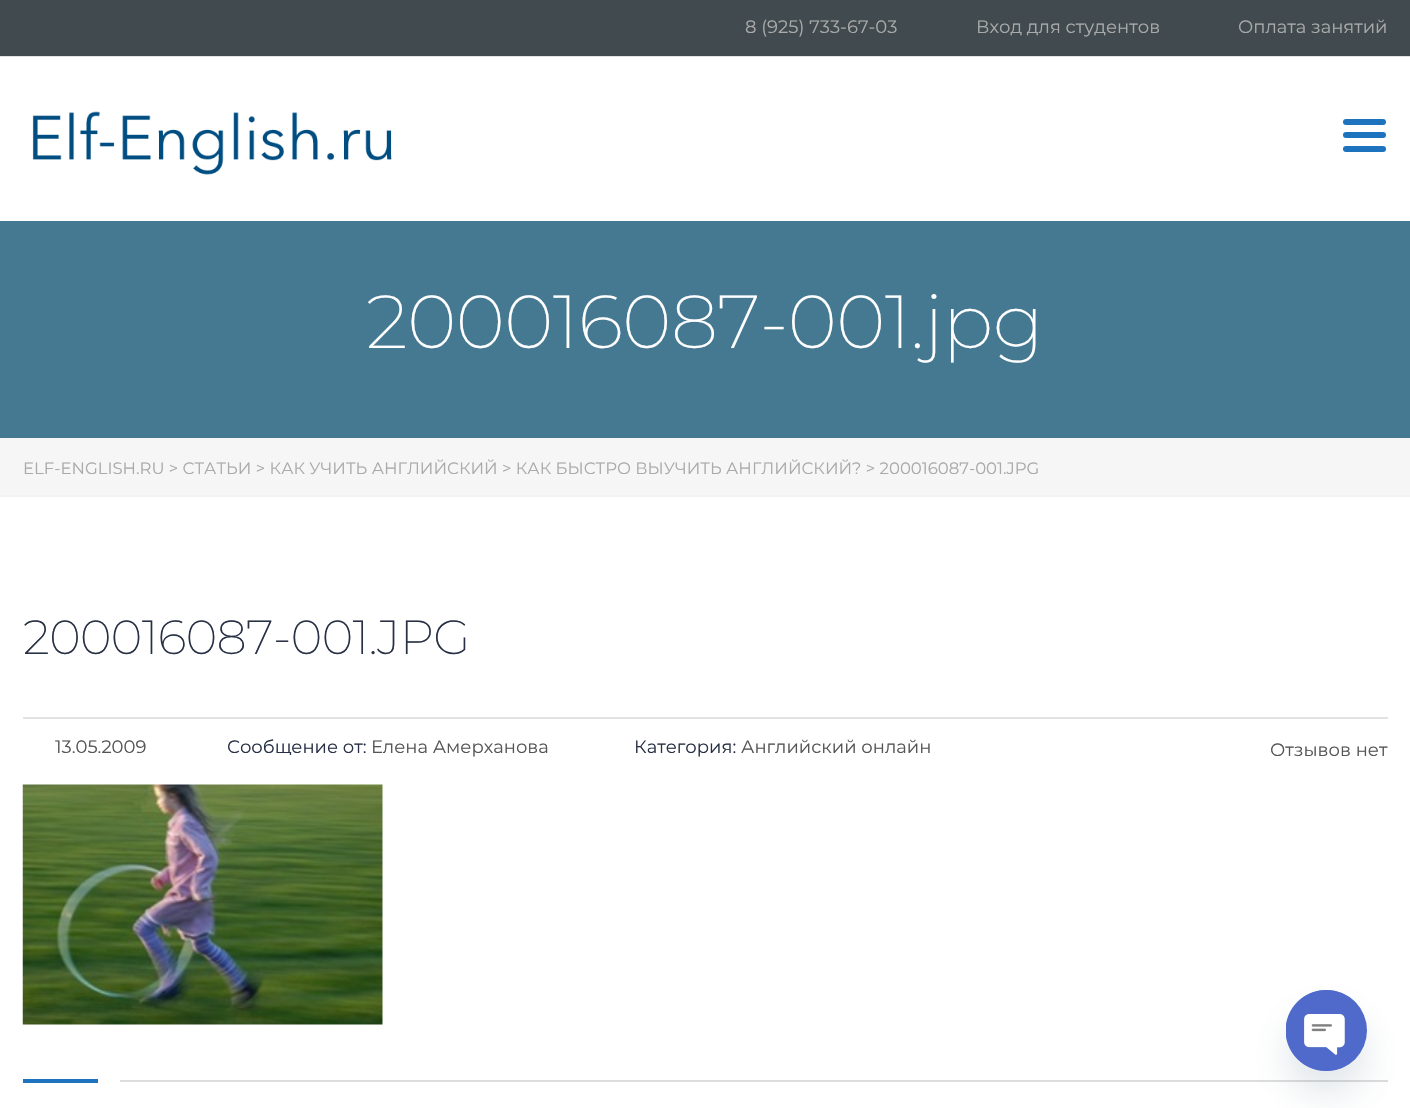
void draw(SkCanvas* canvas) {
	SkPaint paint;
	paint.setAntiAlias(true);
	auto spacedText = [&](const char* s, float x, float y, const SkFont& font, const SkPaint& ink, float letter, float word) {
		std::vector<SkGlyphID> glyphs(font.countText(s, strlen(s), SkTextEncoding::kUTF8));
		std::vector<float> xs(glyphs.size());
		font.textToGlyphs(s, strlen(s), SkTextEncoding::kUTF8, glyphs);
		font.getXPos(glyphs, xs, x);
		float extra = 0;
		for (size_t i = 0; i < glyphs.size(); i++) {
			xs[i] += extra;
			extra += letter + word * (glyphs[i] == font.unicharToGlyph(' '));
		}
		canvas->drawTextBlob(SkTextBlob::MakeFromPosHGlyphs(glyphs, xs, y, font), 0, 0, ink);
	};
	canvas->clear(0xffffffff);
	paint.setColor(0xff414b4f);
	canvas->drawRect(SkRect::MakeXYWH(0, 0, 1410, 56), paint);
	paint.setColor(0xffe2e2e2);
	canvas->drawRect(SkRect::MakeXYWH(0, 56, 1410, 1), paint);
	SkFont f1(fontMgr->matchFamilyStyle("Montserrat", SkFontStyle::Normal()), 18);
	f1.setSubpixel(true);
	paint.setColor(0xffaaaaaa);
	canvas->drawString("8 (925) 733-67-03", 745, 33, f1, paint);
	canvas->drawString("Вход для студентов", 976, 33, f1, paint);
	canvas->drawString("Оплата занятий", 1238, 33, f1, paint);
	canvas->drawImageRect(SkImages::DeferredFromEncodedData(SkData::MakeFromFileName("img1.png")), SkRect::MakeXYWH(32, 111, 360, 64), SkSamplingOptions());
	paint.setColor(0xff1e73be);
	canvas->drawRoundRect(SkRect::MakeXYWH(1343, 119, 43, 6), 3, 3, paint);
	canvas->drawRoundRect(SkRect::MakeXYWH(1343, 132, 43, 6), 3, 3, paint);
	canvas->drawRoundRect(SkRect::MakeXYWH(1343, 146, 43, 6), 3, 3, paint);
	paint.setColor(0xff457992);
	canvas->drawRect(SkRect::MakeXYWH(0, 221, 1410, 217), paint);
	SkFont f2(fontMgr->matchFamilyStyle("Montserrat", SkFontStyle(200, SkFontStyle::kNormal_Width, SkFontStyle::kUpright_Slant)), 75);
	f2.setSubpixel(true);
	paint.setColor(0xffffffff);
	spacedText("200016087-001.jpg", 366, 348, f2, paint, -0.6, 0);
	paint.setColor(0xfff6f6f6);
	canvas->drawRect(SkRect::MakeXYWH(0, 438, 1410, 57), paint);
	paint.setColor(0xfff0f2f5);
	canvas->drawRect(SkRect::MakeXYWH(0, 495, 1410, 2), paint);
	SkFont f3(fontMgr->matchFamilyStyle("Montserrat", SkFontStyle::Normal()), 16.5);
	f3.setSubpixel(true);
	paint.setColor(0xffaaaaaa);
	canvas->drawString("ELF-ENGLISH.RU > СТАТЬИ > КАК УЧИТЬ АНГЛИЙСКИЙ > КАК БЫСТРО ВЫУЧИТЬ АНГЛИЙСКИЙ? > 200016087-001.JPG", 23, 474, f3, paint);
	paint.setColor(0xffe1e2e4);
	canvas->drawRect(SkRect::MakeXYWH(23, 717, 1365, 2), paint);
	SkFont f4(fontMgr->matchFamilyStyle("Montserrat", SkFontStyle(200, SkFontStyle::kNormal_Width, SkFontStyle::kUpright_Slant)), 48);
	f4.setSubpixel(true);
	paint.setColor(0xff273044);
	spacedText("200016087-001.JPG", 23, 654, f4, paint, -0.6, 0);
	paint.setColor(0xff555555);
	canvas->drawString("13.05.2009", 55, 753, f1, paint);
	paint.setColor(0xff273044);
	canvas->drawString("Сообщение от:", 227, 753, f1, paint);
	paint.setColor(0xff555555);
	canvas->drawString("Елена Амерханова", 371, 753, f1, paint);
	paint.setColor(0xff273044);
	canvas->drawString("Категория:", 634, 753, f1, paint);
	paint.setColor(0xff555555);
	canvas->drawString("Английский онлайн", 741, 753, f1, paint);
	canvas->drawString("Отзывов нет", 1270, 756, f1, paint);
	canvas->drawImageRect(SkImages::DeferredFromEncodedData(SkData::MakeFromFileName("img2.png")), SkRect::MakeXYWH(22, 784, 361, 241), SkSamplingOptions());
	paint.setColor(0xff1e73be);
	canvas->drawRect(SkRect::MakeXYWH(23, 1079, 75, 4), paint);
	paint.setColor(0xffdcdcdc);
	canvas->drawRect(SkRect::MakeXYWH(120, 1080, 1268, 2), paint);
	paint.setColor(0x2949687e);
	paint.setMaskFilter(SkMaskFilter::MakeBlur(kNormal_SkBlurStyle, 18));
	canvas->drawRoundRect(SkRect::MakeXYWH(1286, 1014, 81, 81), 40.5, 40.5, paint);
	paint.setMaskFilter(nullptr);
	paint.setColor(0xff4f6aca);
	canvas->drawCircle(1326.5, 1030.5, 40.5, paint);
	canvas->drawImageRect(SkImages::DeferredFromEncodedData(SkData::MakeFromFileName("img3.png")), SkRect::MakeXYWH(1286, 990, 72, 81), SkSamplingOptions());
}
